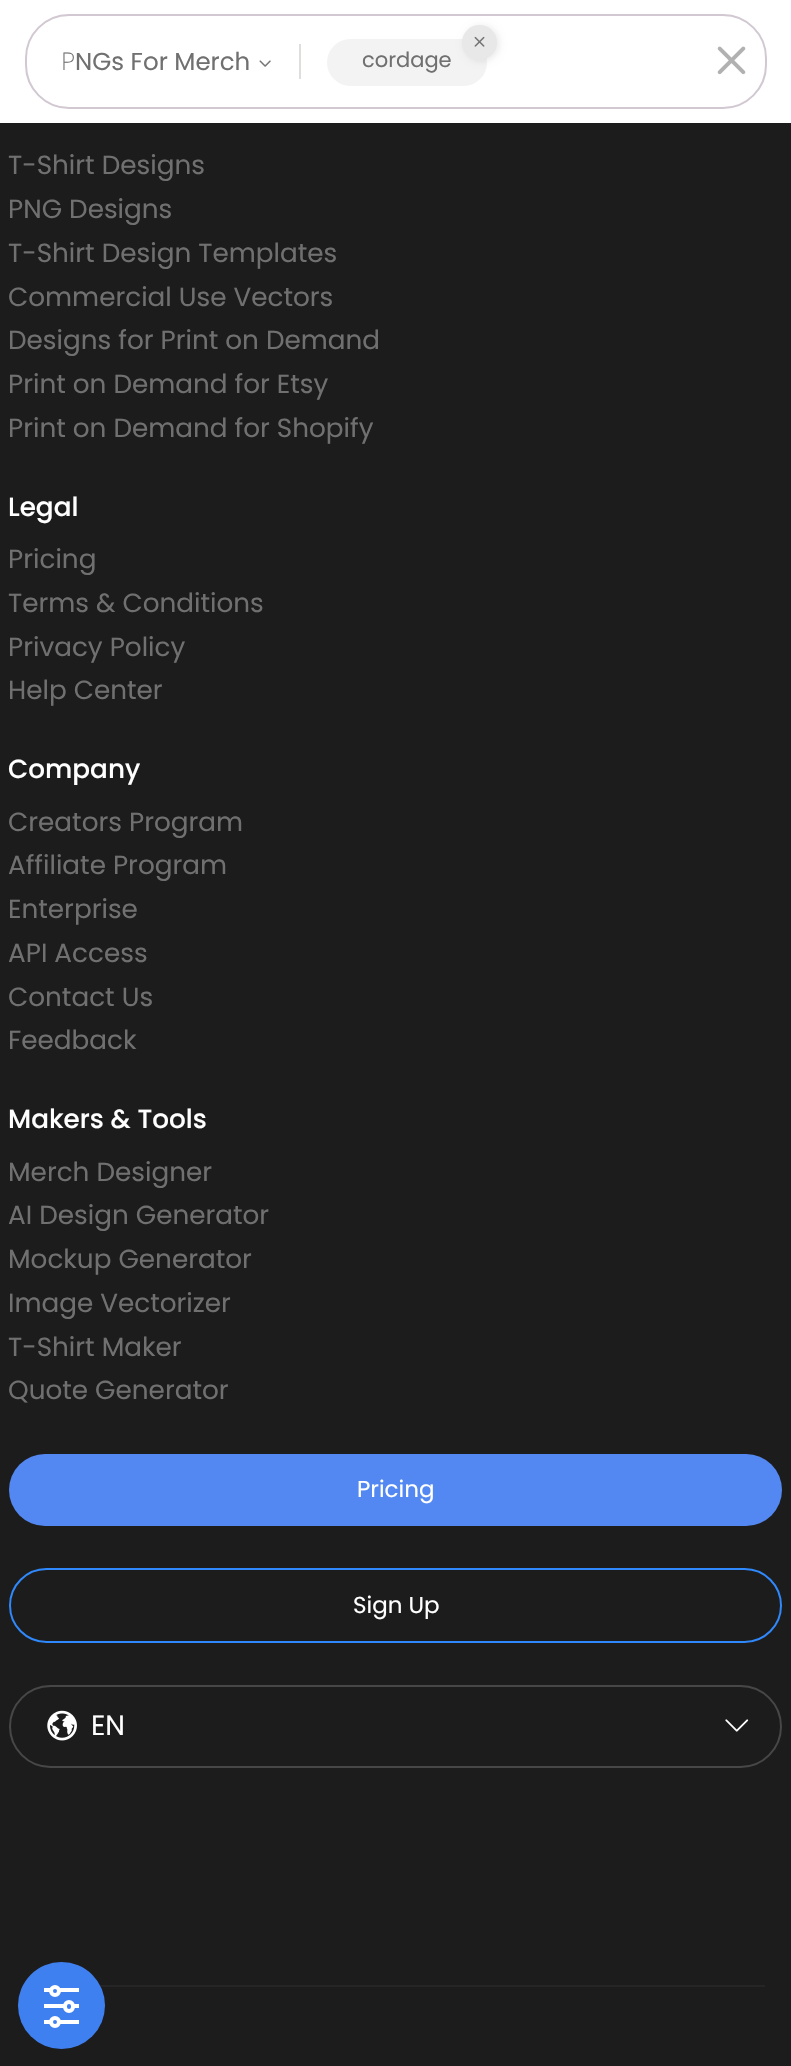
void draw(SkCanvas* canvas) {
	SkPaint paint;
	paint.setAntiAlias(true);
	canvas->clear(0xff1c1c1c);
	paint.setColor(0xffffffff);
	canvas->drawRect(SkRect::MakeXYWH(0, 0, 791, 123), paint);
	paint.setStroke(true);
	paint.setStrokeWidth(2);
	paint.setColor(0xffd1c8d1);
	canvas->drawRoundRect(SkRect::MakeXYWH(26, 15, 740, 93), 43, 43, paint);
	paint.setStroke(false);
	paint.setColor(0xffdfdedc);
	canvas->drawRect(SkRect::MakeXYWH(299, 44, 2, 35), paint);
	SkFont f1(fontMgr->matchFamilyStyle("Noto Sans", SkFontStyle(200, SkFontStyle::kNormal_Width, SkFontStyle::kUpright_Slant)), 24.5);
	f1.setSubpixel(true);
	paint.setColor(0xff707070);
	canvas->drawString("P", 61, 70, f1, paint);
	SkFont f2(fontMgr->matchFamilyStyle("Poppins", SkFontStyle::Normal()), 24.5);
	f2.setSubpixel(true);
	canvas->drawString("NGs For Merch", 75, 70, f2, paint);
	canvas->drawImageRect(SkImages::DeferredFromEncodedData(SkData::MakeFromFileName("img1.png")), SkRect::MakeXYWH(259, 60, 12, 7), SkSamplingOptions());
	paint.setColor(0xfff3f3f3);
	canvas->drawRoundRect(SkRect::MakeXYWH(327, 39, 160, 47), 23.5, 23.5, paint);
	SkFont f3(fontMgr->matchFamilyStyle("Poppins", SkFontStyle::Normal()), 21);
	f3.setSubpixel(true);
	paint.setColor(0xff707070);
	canvas->drawString("cordage", 362, 67, f3, paint);
	paint.setColor(0x17000000);
	paint.setMaskFilter(SkMaskFilter::MakeBlur(kNormal_SkBlurStyle, 3.5));
	canvas->drawRoundRect(SkRect::MakeXYWH(464, 26, 35, 35), 17.5, 17.5, paint);
	paint.setMaskFilter(nullptr);
	paint.setColor(0xffe8e8e8);
	canvas->drawCircle(479.5, 42.5, 17.5, paint);
	canvas->drawImageRect(SkImages::DeferredFromEncodedData(SkData::MakeFromFileName("img2.png")), SkRect::MakeXYWH(474, 36, 11, 11), SkSamplingOptions());
	canvas->drawImageRect(SkImages::DeferredFromEncodedData(SkData::MakeFromFileName("img3.png")), SkRect::MakeXYWH(717, 46, 29, 29), SkSamplingOptions());
	SkFont f4(fontMgr->matchFamilyStyle("Poppins", SkFontStyle::Normal()), 26.25);
	f4.setSubpixel(true);
	paint.setColor(0xff707070);
	canvas->drawString("T-Shirt Designs", 8, 174, f4, paint);
	canvas->drawString("PNG Designs", 8, 218, f4, paint);
	canvas->drawString("T-Shirt Design Templates", 8, 262, f4, paint);
	canvas->drawString("Commercial Use Vectors", 8, 306, f4, paint);
	canvas->drawString("Designs for Print on Demand", 8, 349, f4, paint);
	canvas->drawString("Print on Demand for Etsy", 8, 393, f4, paint);
	canvas->drawString("Print on Demand for Shopify", 8, 437, f4, paint);
	SkFont f5(fontMgr->matchFamilyStyle("Poppins", SkFontStyle(500, SkFontStyle::kNormal_Width, SkFontStyle::kUpright_Slant)), 26.25);
	f5.setSubpixel(true);
	paint.setColor(0xffffffff);
	canvas->drawString("Legal", 8, 516, f5, paint);
	paint.setColor(0xff707070);
	canvas->drawString("Pricing", 8, 568, f4, paint);
	canvas->drawString("Terms & Conditions", 8, 612, f4, paint);
	canvas->drawString("Privacy Policy", 8, 656, f4, paint);
	canvas->drawString("Help Center", 8, 699, f4, paint);
	paint.setColor(0xffffffff);
	canvas->drawString("Company", 8, 778, f5, paint);
	paint.setColor(0xff707070);
	canvas->drawString("Creators Program", 8, 831, f4, paint);
	canvas->drawString("Affiliate Program", 8, 874, f4, paint);
	canvas->drawString("Enterprise", 8, 918, f4, paint);
	canvas->drawString("API Access", 8, 962, f4, paint);
	canvas->drawString("Contact Us", 8, 1006, f4, paint);
	canvas->drawString("Feedback", 8, 1049, f4, paint);
	paint.setColor(0xffffffff);
	canvas->drawString("Makers & Tools", 8, 1128, f5, paint);
	paint.setColor(0xff707070);
	canvas->drawString("Merch Designer", 8, 1181, f4, paint);
	canvas->drawString("AI Design Generator", 8, 1224, f4, paint);
	canvas->drawString("Mockup Generator", 8, 1268, f4, paint);
	canvas->drawString("Image Vectorizer", 8, 1312, f4, paint);
	canvas->drawString("T-Shirt Maker", 8, 1356, f4, paint);
	canvas->drawString("Quote Generator", 8, 1399, f4, paint);
	paint.setColor(0xff5388f2);
	canvas->drawRoundRect(SkRect::MakeXYWH(9, 1454, 773, 72), 36, 36, paint);
	SkFont f6(fontMgr->matchFamilyStyle("Poppins", SkFontStyle::Normal()), 23);
	f6.setSubpixel(true);
	paint.setColor(0xffffffff);
	canvas->drawString("Pricing", 357, 1497, f6, paint);
	paint.setStroke(true);
	paint.setColor(0xff2f88fc);
	canvas->drawRoundRect(SkRect::MakeXYWH(10, 1569, 771, 73), 36.5, 36.5, paint);
	paint.setStroke(false);
	paint.setColor(0xffffffff);
	canvas->drawString("Sign Up", 353, 1613, f6, paint);
	paint.setStroke(true);
	paint.setColor(0xff474747);
	canvas->drawRoundRect(SkRect::MakeXYWH(10, 1686, 771, 81), 40.5, 40.5, paint);
	canvas->drawImageRect(SkImages::DeferredFromEncodedData(SkData::MakeFromFileName("img4.png")), SkRect::MakeXYWH(47, 1710, 30, 31), SkSamplingOptions());
	SkFont f7(fontMgr->matchFamilyStyle("Poppins", SkFontStyle::Normal()), 28);
	f7.setSubpixel(true);
	paint.setStroke(false);
	paint.setColor(0xffffffff);
	canvas->drawString("EN", 91, 1735, f7, paint);
	canvas->drawImageRect(SkImages::DeferredFromEncodedData(SkData::MakeFromFileName("img5.png")), SkRect::MakeXYWH(725, 1719, 24, 13), SkSamplingOptions());
	paint.setColor(0xff252525);
	canvas->drawRect(SkRect::MakeXYWH(99, 1985, 666, 2), paint);
	paint.setColor(0xff3f80f1);
	canvas->drawCircle(61.5, 2005.5, 43.5, paint);
	paint.setColor(0xffffffff);
	canvas->drawRect(SkRect::MakeXYWH(44, 1988, 35, 4), paint);
	paint.setColor(0xff3f80f1);
	canvas->drawCircle(55, 1991, 4, paint);
	paint.setStroke(true);
	paint.setStrokeWidth(4);
	paint.setColor(0xffffffff);
	canvas->drawCircle(55, 1991, 4, paint);
	paint.setStroke(false);
	canvas->drawRect(SkRect::MakeXYWH(44, 2004, 35, 4), paint);
	paint.setColor(0xff3f80f1);
	canvas->drawRoundRect(SkRect::MakeXYWH(65, 2002, 8, 9), 4, 4, paint);
	paint.setStroke(true);
	paint.setColor(0xffffffff);
	canvas->drawRoundRect(SkRect::MakeXYWH(65, 2002, 8, 9), 4, 4, paint);
	paint.setStroke(false);
	canvas->drawRect(SkRect::MakeXYWH(44, 2020, 35, 4), paint);
	paint.setColor(0xff3f80f1);
	canvas->drawCircle(55, 2022, 4, paint);
	paint.setStroke(true);
	paint.setColor(0xffffffff);
	canvas->drawCircle(55, 2022, 4, paint);
}
